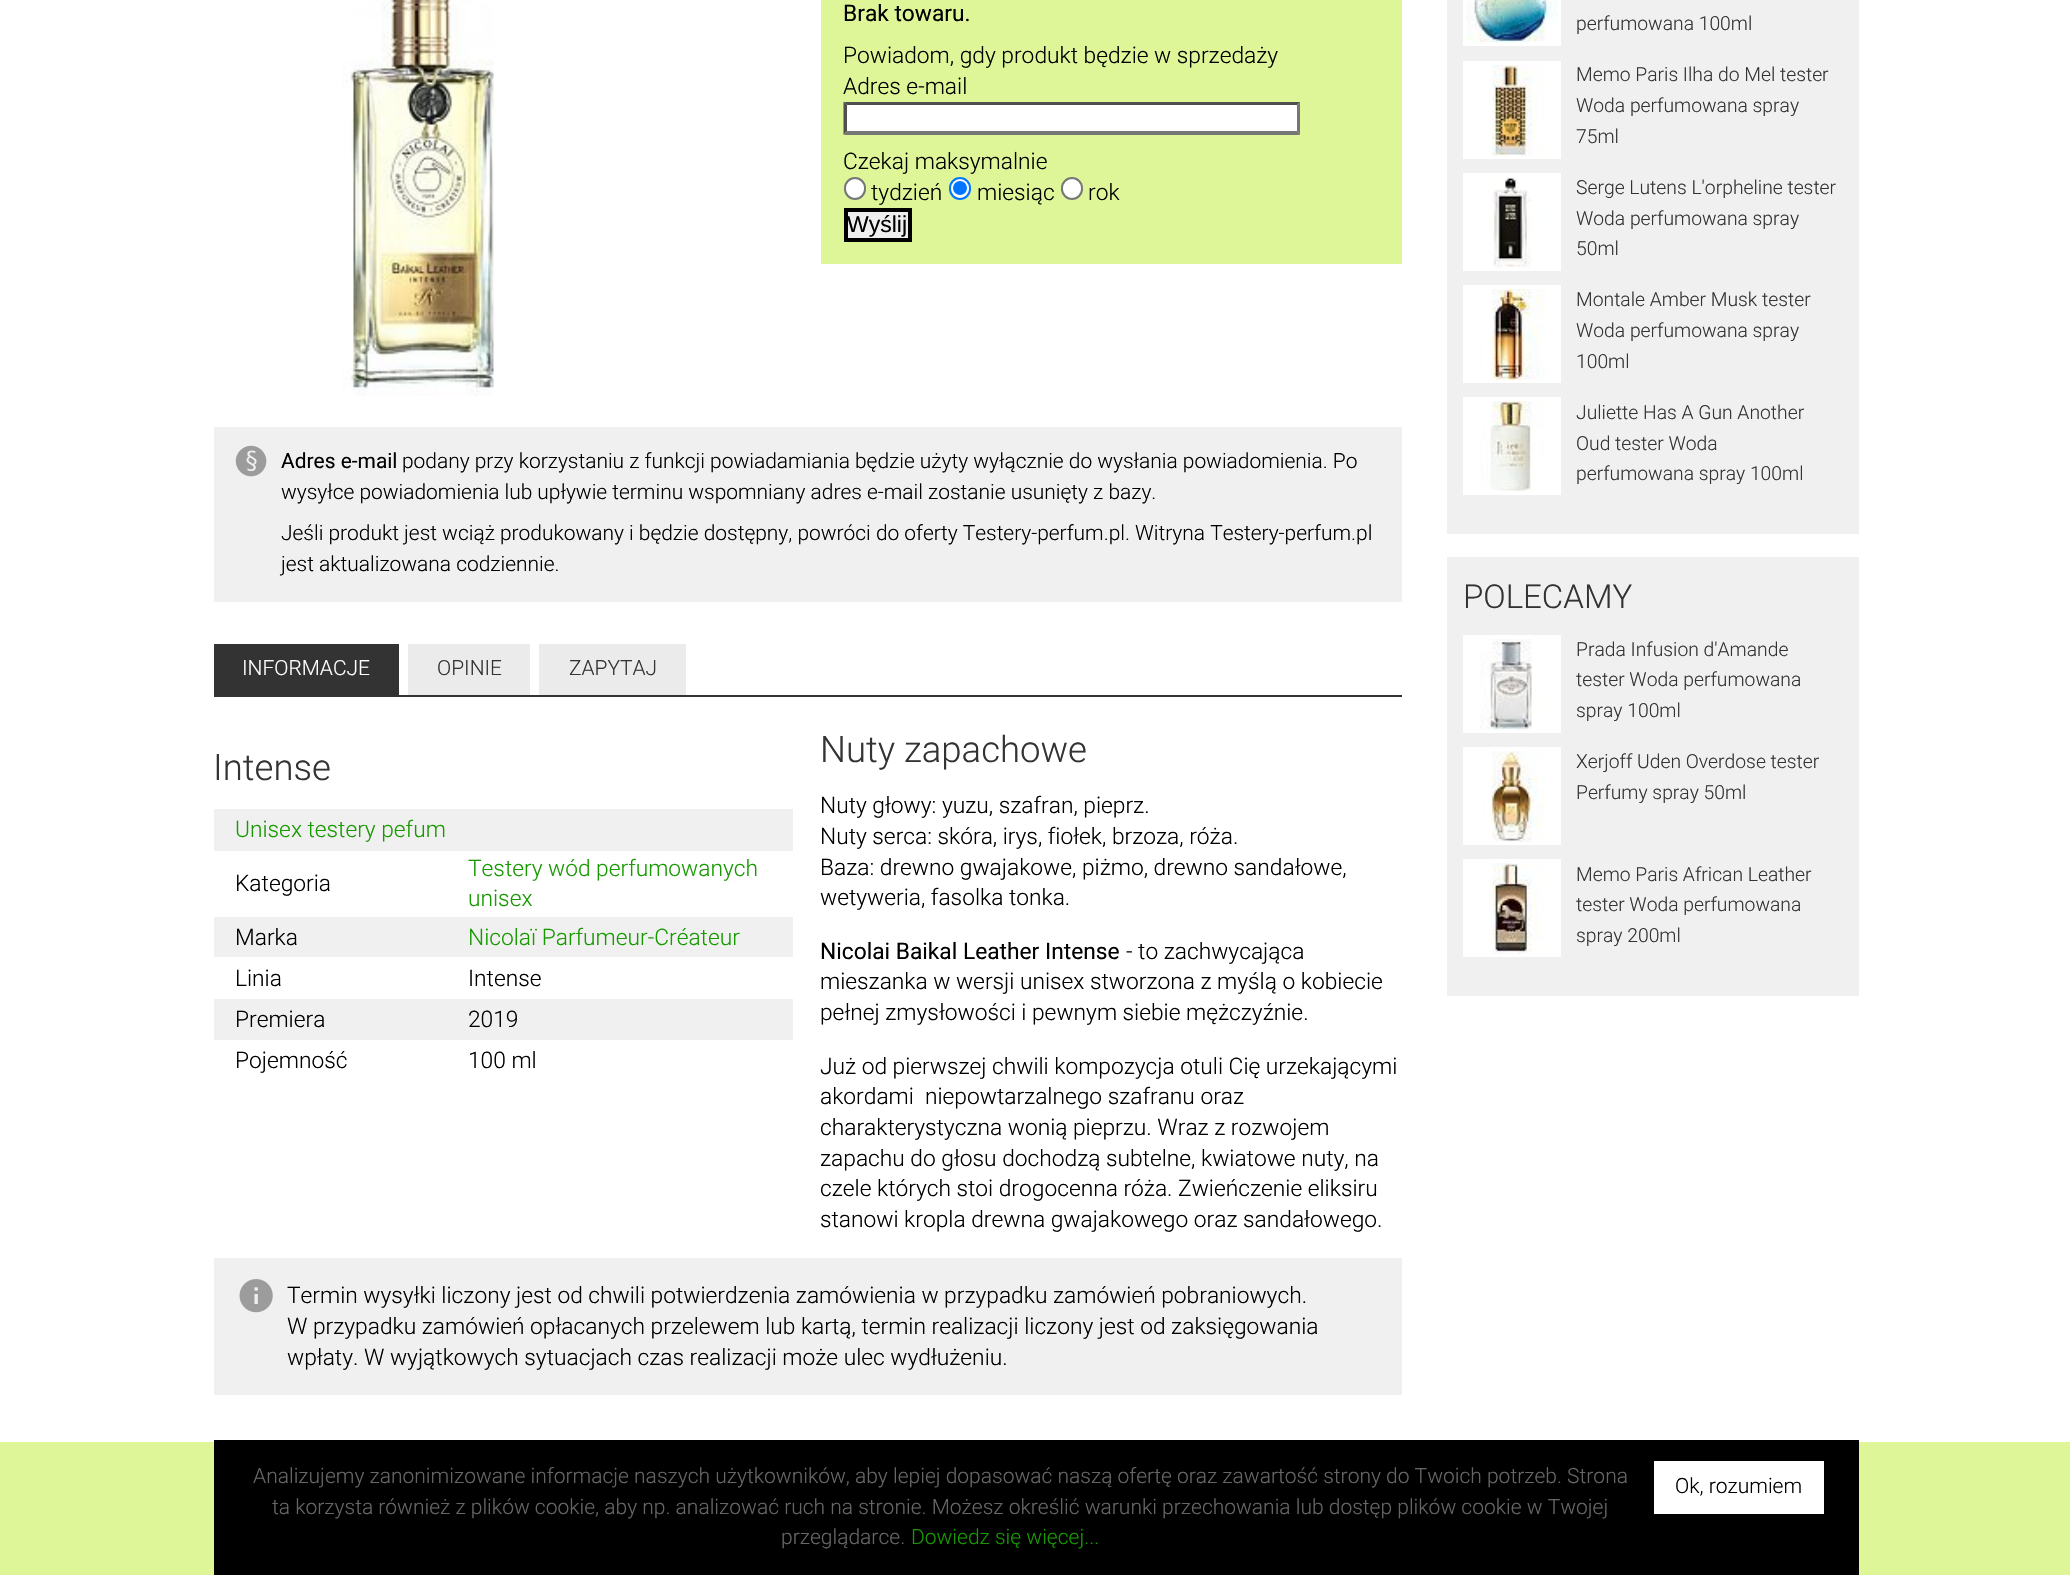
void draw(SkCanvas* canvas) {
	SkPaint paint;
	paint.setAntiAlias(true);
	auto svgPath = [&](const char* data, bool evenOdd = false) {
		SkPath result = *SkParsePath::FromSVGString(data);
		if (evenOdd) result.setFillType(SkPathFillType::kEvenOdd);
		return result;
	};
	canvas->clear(0xffffffff);
	canvas->drawImageRect(SkImages::DeferredFromEncodedData(SkData::MakeFromFileName("img1.png")), SkRect::MakeXYWH(342, 0, 152, 396), SkSamplingOptions());
	paint.setColor(0xffdef598);
	canvas->drawRect(SkRect::MakeXYWH(821, 0, 581, 264), paint);
	SkFont f1(fontMgr->matchFamilyStyle("Roboto", SkFontStyle::Normal()), 22.75);
	f1.setSubpixel(true);
	paint.setColor(0xff000000);
	canvas->drawString("Brak towaru.", 843, 21, f1, paint);
	SkFont f2(fontMgr->matchFamilyStyle("Roboto", SkFontStyle(300, SkFontStyle::kNormal_Width, SkFontStyle::kUpright_Slant)), 22.75);
	f2.setSubpixel(true);
	canvas->drawString("Powiadom, gdy produkt będzie w sprzedaży", 843, 63, f2, paint);
	canvas->drawString("Adres e-mail", 843, 94, f2, paint);
	paint.setColor(0xffffffff);
	canvas->drawRect(SkRect::MakeXYWH(847, 105, 450, 26), paint);
	paint.setColor(0xff4f4f4f);
	canvas->drawPath(svgPath("M844 102H1300L1297 105H847Z"), paint);
	paint.setColor(0xff767676);
	canvas->drawPath(svgPath("M1300 101.5V135L1297 131V105Z"), paint);
	canvas->drawPath(svgPath("M1300 135H844L847 131H1297Z"), paint);
	paint.setColor(0xff4f4f4f);
	canvas->drawPath(svgPath("M843.5 135V101.5L847 105V131Z"), paint);
	paint.setColor(0xff000000);
	canvas->drawString("Czekaj maksymalnie", 843, 169, f2, paint);
	paint.setColor(0xffffffff);
	canvas->drawRoundRect(SkRect::MakeXYWH(845, 178, 20, 21), 10, 10, paint);
	paint.setStroke(true);
	paint.setStrokeWidth(2);
	paint.setColor(0xff767676);
	canvas->drawRoundRect(SkRect::MakeXYWH(845, 178, 20, 21), 10, 10, paint);
	paint.setStroke(false);
	paint.setColor(0xff000000);
	canvas->drawString("tydzień", 871, 200, f2, paint);
	paint.setColor(0xffffffff);
	canvas->drawRoundRect(SkRect::MakeXYWH(950, 178, 20, 21), 10, 10, paint);
	paint.setStroke(true);
	paint.setColor(0xff0075ff);
	canvas->drawRoundRect(SkRect::MakeXYWH(950, 178, 20, 21), 10, 10, paint);
	paint.setStroke(false);
	canvas->drawCircle(960, 188, 7, paint);
	paint.setColor(0xff000000);
	canvas->drawString("miesiąc", 977, 200, f2, paint);
	paint.setColor(0xffffffff);
	canvas->drawRoundRect(SkRect::MakeXYWH(1062, 178, 20, 21), 10, 10, paint);
	paint.setStroke(true);
	paint.setColor(0xff767676);
	canvas->drawRoundRect(SkRect::MakeXYWH(1062, 178, 20, 21), 10, 10, paint);
	paint.setStroke(false);
	paint.setColor(0xff000000);
	canvas->drawString("rok", 1088, 200, f2, paint);
	paint.setColor(0xffefefef);
	canvas->drawRect(SkRect::MakeXYWH(846, 210, 64, 30), paint);
	paint.setStroke(true);
	paint.setStrokeWidth(4);
	paint.setColor(0xff000000);
	canvas->drawRect(SkRect::MakeXYWH(846, 210, 64, 30), paint);
	SkFont f3(fontMgr->matchFamilyStyle("Liberation Sans", SkFontStyle::Normal()), 23);
	f3.setSubpixel(true);
	paint.setStroke(false);
	canvas->drawString("Wyślij", 847, 232, f3, paint);
	paint.setColor(0xfff0f0f0);
	canvas->drawRect(SkRect::MakeXYWH(214, 427, 1188, 175), paint);
	canvas->drawImageRect(SkImages::DeferredFromEncodedData(SkData::MakeFromFileName("img2.png")), SkRect::MakeXYWH(235, 445, 32, 32), SkSamplingOptions());
	SkFont f4(fontMgr->matchFamilyStyle("Roboto", SkFontStyle::Normal()), 20.93);
	f4.setSubpixel(true);
	paint.setColor(0xff000000);
	canvas->drawString("Adres e-mail", 281, 468, f4, paint);
	SkFont f5(fontMgr->matchFamilyStyle("Roboto", SkFontStyle(300, SkFontStyle::kNormal_Width, SkFontStyle::kUpright_Slant)), 20.93);
	f5.setSubpixel(true);
	canvas->drawString("podany przy korzystaniu z funkcji powiadamiania będzie użyty wyłącznie do wysłania powiadomienia. Po", 402, 468, f5, paint);
	canvas->drawString("wysyłce powiadomienia lub upływie terminu wspomniany adres e-mail zostanie usunięty z bazy.", 281, 499, f5, paint);
	canvas->drawString("Jeśli produkt jest wciąż produkowany i będzie dostępny, powróci do oferty Testery-perfum.pl. Witryna Testery-perfum.pl", 281, 540, f5, paint);
	canvas->drawString("jest aktualizowana codziennie.", 281, 571, f5, paint);
	paint.setColor(0xff333333);
	canvas->drawRect(SkRect::MakeXYWH(214, 695, 1188, 2), paint);
	canvas->drawRect(SkRect::MakeXYWH(214, 644, 185, 51), paint);
	paint.setColor(0xffffffff);
	canvas->drawString("INFORMACJE", 242, 675, f5, paint);
	paint.setColor(0xffebebeb);
	canvas->drawRect(SkRect::MakeXYWH(408, 644, 122, 51), paint);
	paint.setColor(0xff333333);
	canvas->drawString("OPINIE", 437, 675, f5, paint);
	paint.setColor(0xffebebeb);
	canvas->drawRect(SkRect::MakeXYWH(539, 644, 147, 51), paint);
	paint.setColor(0xff333333);
	canvas->drawString("ZAPYTAJ", 569, 675, f5, paint);
	SkFont f6(fontMgr->matchFamilyStyle("Roboto", SkFontStyle(300, SkFontStyle::kNormal_Width, SkFontStyle::kUpright_Slant)), 36.5);
	f6.setSubpixel(true);
	canvas->drawString("Intense", 213, 780, f6, paint);
	paint.setColor(0xfff0f0f0);
	canvas->drawRect(SkRect::MakeXYWH(214, 809, 579, 42), paint);
	paint.setColor(0xff179a01);
	canvas->drawString("Unisex testery pefum", 235, 837, f2, paint);
	paint.setColor(0xff000000);
	canvas->drawString("Kategoria", 235, 891, f2, paint);
	paint.setColor(0xff179a01);
	canvas->drawString("Testery wód perfumowanych", 468, 876, f2, paint);
	canvas->drawString("unisex", 468, 906, f2, paint);
	paint.setColor(0xfff0f0f0);
	canvas->drawRect(SkRect::MakeXYWH(214, 917, 579, 40), paint);
	paint.setColor(0xff000000);
	canvas->drawString("Marka", 235, 945, f2, paint);
	paint.setColor(0xff179a01);
	canvas->drawString("Nicolaï Parfumeur-Créateur", 468, 945, f2, paint);
	paint.setColor(0xff000000);
	canvas->drawString("Linia", 235, 986, f2, paint);
	canvas->drawString("Intense", 468, 986, f2, paint);
	paint.setColor(0xfff0f0f0);
	canvas->drawRect(SkRect::MakeXYWH(214, 999, 579, 41), paint);
	paint.setColor(0xff000000);
	canvas->drawString("Premiera", 235, 1027, f2, paint);
	canvas->drawString("2019", 468, 1027, f2, paint);
	canvas->drawString("Pojemność", 235, 1068, f2, paint);
	canvas->drawString("100 ml", 468, 1068, f2, paint);
	paint.setColor(0xff333333);
	canvas->drawString("Nuty zapachowe", 820, 762, f6, paint);
	paint.setColor(0xff000000);
	canvas->drawString("Nuty głowy: yuzu, szafran, pieprz.", 820, 813, f2, paint);
	canvas->drawString("Nuty serca: skóra, irys, fiołek, brzoza, róża.", 820, 844, f2, paint);
	canvas->drawString("Baza: drewno gwajakowe, piżmo, drewno sandałowe,", 820, 875, f2, paint);
	canvas->drawString("wetyweria, fasolka tonka.", 820, 905, f2, paint);
	canvas->drawString("Nicolai Baikal Leather Intense", 820, 959, f1, paint);
	canvas->drawString("- to zachwycająca", 1126, 959, f2, paint);
	canvas->drawString("mieszanka w wersji unisex stworzona z myślą o kobiecie", 820, 989, f2, paint);
	canvas->drawString("pełnej zmysłowości i pewnym siebie mężczyźnie.", 820, 1020, f2, paint);
	canvas->drawString("Już od pierwszej chwili kompozycja otuli Cię urzekającymi", 820, 1074, f2, paint);
	canvas->drawString("akordami  niepowtarzalnego szafranu oraz", 820, 1104, f2, paint);
	canvas->drawString("charakterystyczna wonią pieprzu. Wraz z rozwojem", 820, 1135, f2, paint);
	canvas->drawString("zapachu do głosu dochodzą subtelne, kwiatowe nuty, na", 820, 1166, f2, paint);
	canvas->drawString("czele których stoi drogocenna róża. Zwieńczenie eliksiru", 820, 1196, f2, paint);
	canvas->drawString("stanowi kropla drewna gwajakowego oraz sandałowego.", 820, 1227, f2, paint);
	paint.setColor(0xfff0f0f0);
	canvas->drawRect(SkRect::MakeXYWH(214, 1258, 1188, 137), paint);
	canvas->drawImageRect(SkImages::DeferredFromEncodedData(SkData::MakeFromFileName("img3.png")), SkRect::MakeXYWH(239, 1279, 34, 34), SkSamplingOptions());
	paint.setColor(0xff000000);
	canvas->drawString("Termin wysyłki liczony jest od chwili potwierdzenia zamówienia w przypadku zamówień pobraniowych.", 287, 1303, f2, paint);
	canvas->drawString("W przypadku zamówień opłacanych przelewem lub kartą, termin realizacji liczony jest od zaksięgowania", 287, 1334, f2, paint);
	canvas->drawString("wpłaty. W wyjątkowych sytuacjach czas realizacji może ulec wydłużeniu.", 287, 1365, f2, paint);
	paint.setColor(0xfff0f0f0);
	canvas->drawRect(SkRect::MakeXYWH(1447, 0, 412, 534), paint);
	paint.setStroke(true);
	paint.setColor(0xffffffff);
	canvas->drawRect(SkRect::MakeXYWH(1465, -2, 94, 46), paint);
	canvas->drawImageRect(SkImages::DeferredFromEncodedData(SkData::MakeFromFileName("img4.png")), SkRect::MakeXYWH(1466, 0, 92, 43), SkSamplingOptions());
	SkFont f7(fontMgr->matchFamilyStyle("Roboto", SkFontStyle(300, SkFontStyle::kNormal_Width, SkFontStyle::kUpright_Slant)), 19.3);
	f7.setSubpixel(true);
	paint.setStroke(false);
	paint.setColor(0xff333333);
	canvas->drawString("perfumowana 100ml", 1576, 30, f7, paint);
	paint.setStroke(true);
	paint.setColor(0xffffffff);
	canvas->drawRect(SkRect::MakeXYWH(1465, 63, 94, 94), paint);
	canvas->drawImageRect(SkImages::DeferredFromEncodedData(SkData::MakeFromFileName("img5.png")), SkRect::MakeXYWH(1467, 65, 90, 91), SkSamplingOptions());
	paint.setStroke(false);
	paint.setColor(0xff333333);
	canvas->drawString("Memo Paris Ilha do Mel tester", 1576, 81, f7, paint);
	canvas->drawString("Woda perfumowana spray", 1576, 112, f7, paint);
	canvas->drawString("75ml", 1576, 143, f7, paint);
	paint.setStroke(true);
	paint.setColor(0xffffffff);
	canvas->drawRect(SkRect::MakeXYWH(1465, 175, 94, 94), paint);
	canvas->drawImageRect(SkImages::DeferredFromEncodedData(SkData::MakeFromFileName("img6.png")), SkRect::MakeXYWH(1467, 177, 90, 91), SkSamplingOptions());
	paint.setStroke(false);
	paint.setColor(0xff333333);
	canvas->drawString("Serge Lutens L'orpheline tester", 1576, 194, f7, paint);
	canvas->drawString("Woda perfumowana spray", 1576, 225, f7, paint);
	canvas->drawString("50ml", 1576, 255, f7, paint);
	paint.setStroke(true);
	paint.setColor(0xffffffff);
	canvas->drawRect(SkRect::MakeXYWH(1465, 287, 94, 94), paint);
	canvas->drawImageRect(SkImages::DeferredFromEncodedData(SkData::MakeFromFileName("img7.png")), SkRect::MakeXYWH(1467, 289, 90, 91), SkSamplingOptions());
	paint.setStroke(false);
	paint.setColor(0xff333333);
	canvas->drawString("Montale Amber Musk tester", 1576, 306, f7, paint);
	canvas->drawString("Woda perfumowana spray", 1576, 337, f7, paint);
	canvas->drawString("100ml", 1576, 368, f7, paint);
	paint.setStroke(true);
	paint.setColor(0xffffffff);
	canvas->drawRect(SkRect::MakeXYWH(1465, 399, 94, 94), paint);
	canvas->drawImageRect(SkImages::DeferredFromEncodedData(SkData::MakeFromFileName("img8.png")), SkRect::MakeXYWH(1467, 401, 90, 91), SkSamplingOptions());
	paint.setStroke(false);
	paint.setColor(0xff333333);
	canvas->drawString("Juliette Has A Gun Another", 1576, 419, f7, paint);
	canvas->drawString("Oud tester Woda", 1576, 450, f7, paint);
	canvas->drawString("perfumowana spray 100ml", 1576, 480, f7, paint);
	paint.setColor(0xfff0f0f0);
	canvas->drawRect(SkRect::MakeXYWH(1447, 557, 412, 439), paint);
	SkFont f8(fontMgr->matchFamilyStyle("Roboto", SkFontStyle(300, SkFontStyle::kNormal_Width, SkFontStyle::kUpright_Slant)), 33);
	f8.setSubpixel(true);
	paint.setColor(0xff333333);
	canvas->drawString("POLECAMY", 1463, 608, f8, paint);
	paint.setStroke(true);
	paint.setColor(0xffffffff);
	canvas->drawRect(SkRect::MakeXYWH(1465, 637, 94, 94), paint);
	canvas->drawImageRect(SkImages::DeferredFromEncodedData(SkData::MakeFromFileName("img9.png")), SkRect::MakeXYWH(1467, 639, 90, 91), SkSamplingOptions());
	paint.setStroke(false);
	paint.setColor(0xff333333);
	canvas->drawString("Prada Infusion d'Amande", 1576, 656, f7, paint);
	canvas->drawString("tester Woda perfumowana", 1576, 686, f7, paint);
	canvas->drawString("spray 100ml", 1576, 717, f7, paint);
	paint.setStroke(true);
	paint.setColor(0xffffffff);
	canvas->drawRect(SkRect::MakeXYWH(1465, 749, 94, 94), paint);
	canvas->drawImageRect(SkImages::DeferredFromEncodedData(SkData::MakeFromFileName("img10.png")), SkRect::MakeXYWH(1467, 751, 90, 91), SkSamplingOptions());
	paint.setStroke(false);
	paint.setColor(0xff333333);
	canvas->drawString("Xerjoff Uden Overdose tester", 1576, 768, f7, paint);
	canvas->drawString("Perfumy spray 50ml", 1576, 799, f7, paint);
	paint.setStroke(true);
	paint.setColor(0xffffffff);
	canvas->drawRect(SkRect::MakeXYWH(1465, 861, 94, 94), paint);
	canvas->drawImageRect(SkImages::DeferredFromEncodedData(SkData::MakeFromFileName("img11.png")), SkRect::MakeXYWH(1467, 863, 90, 91), SkSamplingOptions());
	paint.setStroke(false);
	paint.setColor(0xff333333);
	canvas->drawString("Memo Paris African Leather", 1576, 881, f7, paint);
	canvas->drawString("tester Woda perfumowana", 1576, 911, f7, paint);
	canvas->drawString("spray 200ml", 1576, 942, f7, paint);
	paint.setColor(0xffdef598);
	canvas->drawRect(SkRect::MakeXYWH(0, 1442, 2070, 133), paint);
	paint.setColor(0xff000000);
	canvas->drawRect(SkRect::MakeXYWH(214, 1440, 1645, 135), paint);
	SkFont f9(fontMgr->matchFamilyStyle("Roboto", SkFontStyle(300, SkFontStyle::kNormal_Width, SkFontStyle::kUpright_Slant)), 21);
	f9.setSubpixel(true);
	paint.setColor(0xff666666);
	canvas->drawString("Analizujemy zanonimizowane informacje naszych użytkowników, aby lepiej dopasować naszą ofertę oraz zawartość strony do Twoich potrzeb. Strona", 253, 1483, f9, paint);
	paint.setColor(0xffffffff);
	canvas->drawRect(SkRect::MakeXYWH(1654, 1461, 170, 53), paint);
	paint.setColor(0xff000000);
	canvas->drawString("Ok, rozumiem", 1675, 1493, f9, paint);
	paint.setColor(0xff666666);
	canvas->drawString("ta korzysta również z plików cookie, aby np. analizować ruch na stronie. Możesz określić warunki przechowania lub dostęp plików cookie w Twojej", 272, 1514, f9, paint);
	canvas->drawString("przeglądarce.", 781, 1544, f9, paint);
	paint.setColor(0xff179a01);
	canvas->drawString("Dowiedz się więcej...", 911, 1544, f9, paint);
}
